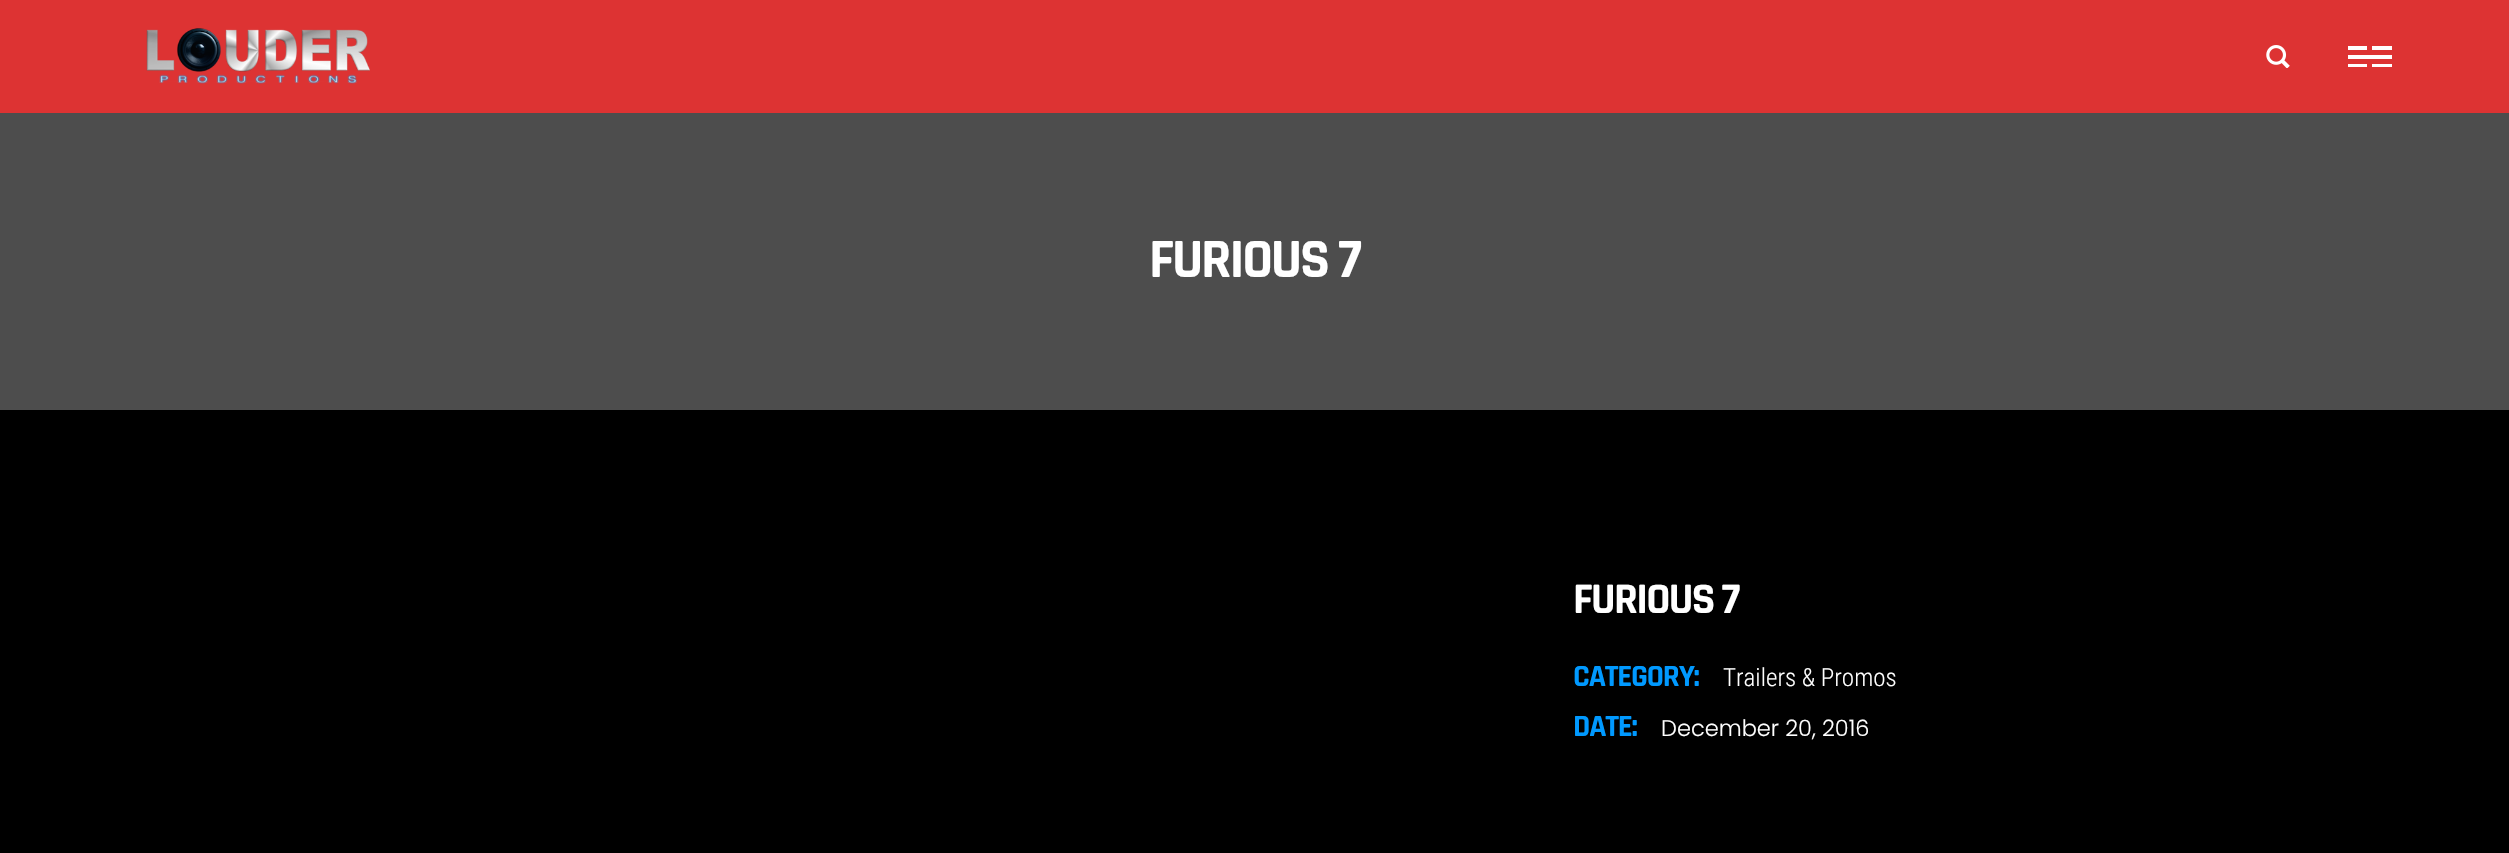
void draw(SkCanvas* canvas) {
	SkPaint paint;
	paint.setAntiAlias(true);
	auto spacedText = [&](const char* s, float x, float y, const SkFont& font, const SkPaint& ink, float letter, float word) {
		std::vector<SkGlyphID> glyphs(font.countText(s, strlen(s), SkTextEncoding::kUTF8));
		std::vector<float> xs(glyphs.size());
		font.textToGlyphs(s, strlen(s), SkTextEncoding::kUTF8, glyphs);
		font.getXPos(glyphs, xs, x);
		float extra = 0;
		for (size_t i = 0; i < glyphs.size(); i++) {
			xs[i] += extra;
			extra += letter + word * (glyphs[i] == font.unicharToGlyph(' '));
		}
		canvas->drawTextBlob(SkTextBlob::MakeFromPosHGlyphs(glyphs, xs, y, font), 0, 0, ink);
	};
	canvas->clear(0xff000000);
	paint.setColor(0xffdd3333);
	canvas->drawRect(SkRect::MakeXYWH(0, 0, 2509, 113), paint);
	canvas->drawImageRect(SkImages::DeferredFromEncodedData(SkData::MakeFromFileName("img1.png")), SkRect::MakeXYWH(146, 28, 224, 56), SkSamplingOptions());
	canvas->drawImageRect(SkImages::DeferredFromEncodedData(SkData::MakeFromFileName("img2.png")), SkRect::MakeXYWH(2266, 45, 24, 23), SkSamplingOptions());
	paint.setColor(0xffffffff);
	canvas->drawRect(SkRect::MakeXYWH(2348, 46, 19, 4), paint);
	canvas->drawRect(SkRect::MakeXYWH(2372, 46, 20, 4), paint);
	canvas->drawRect(SkRect::MakeXYWH(2348, 55, 44, 4), paint);
	canvas->drawRect(SkRect::MakeXYWH(2348, 64, 19, 3), paint);
	canvas->drawRect(SkRect::MakeXYWH(2372, 64, 20, 3), paint);
	paint.setColor(0xff4d4d4d);
	canvas->drawRect(SkRect::MakeXYWH(0, 113, 2509, 297), paint);
	SkFont f1(fontMgr->matchFamilyStyle("Rajdhani", SkFontStyle::Bold()), 56);
	f1.setSubpixel(true);
	paint.setColor(0xffffffff);
	spacedText("FURIOUS 7", 1149, 277, f1, paint, -2.25, 0);
	SkFont f2(fontMgr->matchFamilyStyle("Rajdhani", SkFontStyle::Bold()), 44);
	f2.setSubpixel(true);
	spacedText("FURIOUS 7", 1573, 613, f2, paint, -1.75, 0);
	SkFont f3(fontMgr->matchFamilyStyle("Rajdhani", SkFontStyle::Bold()), 31.25);
	f3.setSubpixel(true);
	paint.setColor(0xff0099ff);
	spacedText("CATEGORY:", 1573, 686, f3, paint, -1.25, 0);
	SkFont f4(fontMgr->matchFamilyStyle("Roboto Condensed", SkFontStyle(300, SkFontStyle::kNormal_Width, SkFontStyle::kUpright_Slant)), 25);
	f4.setSubpixel(true);
	paint.setColor(0xffffffff);
	canvas->drawString("Trailers & Promos", 1723, 686, f4, paint);
	paint.setColor(0xff0099ff);
	spacedText("DATE:", 1573, 736, f3, paint, -1.25, 0);
	SkFont f5(fontMgr->matchFamilyStyle("Poppins", SkFontStyle(300, SkFontStyle::kNormal_Width, SkFontStyle::kUpright_Slant)), 22.5);
	f5.setSubpixel(true);
	paint.setColor(0xffffffff);
	canvas->drawString("December 20, 2016", 1661, 736, f5, paint);
}
